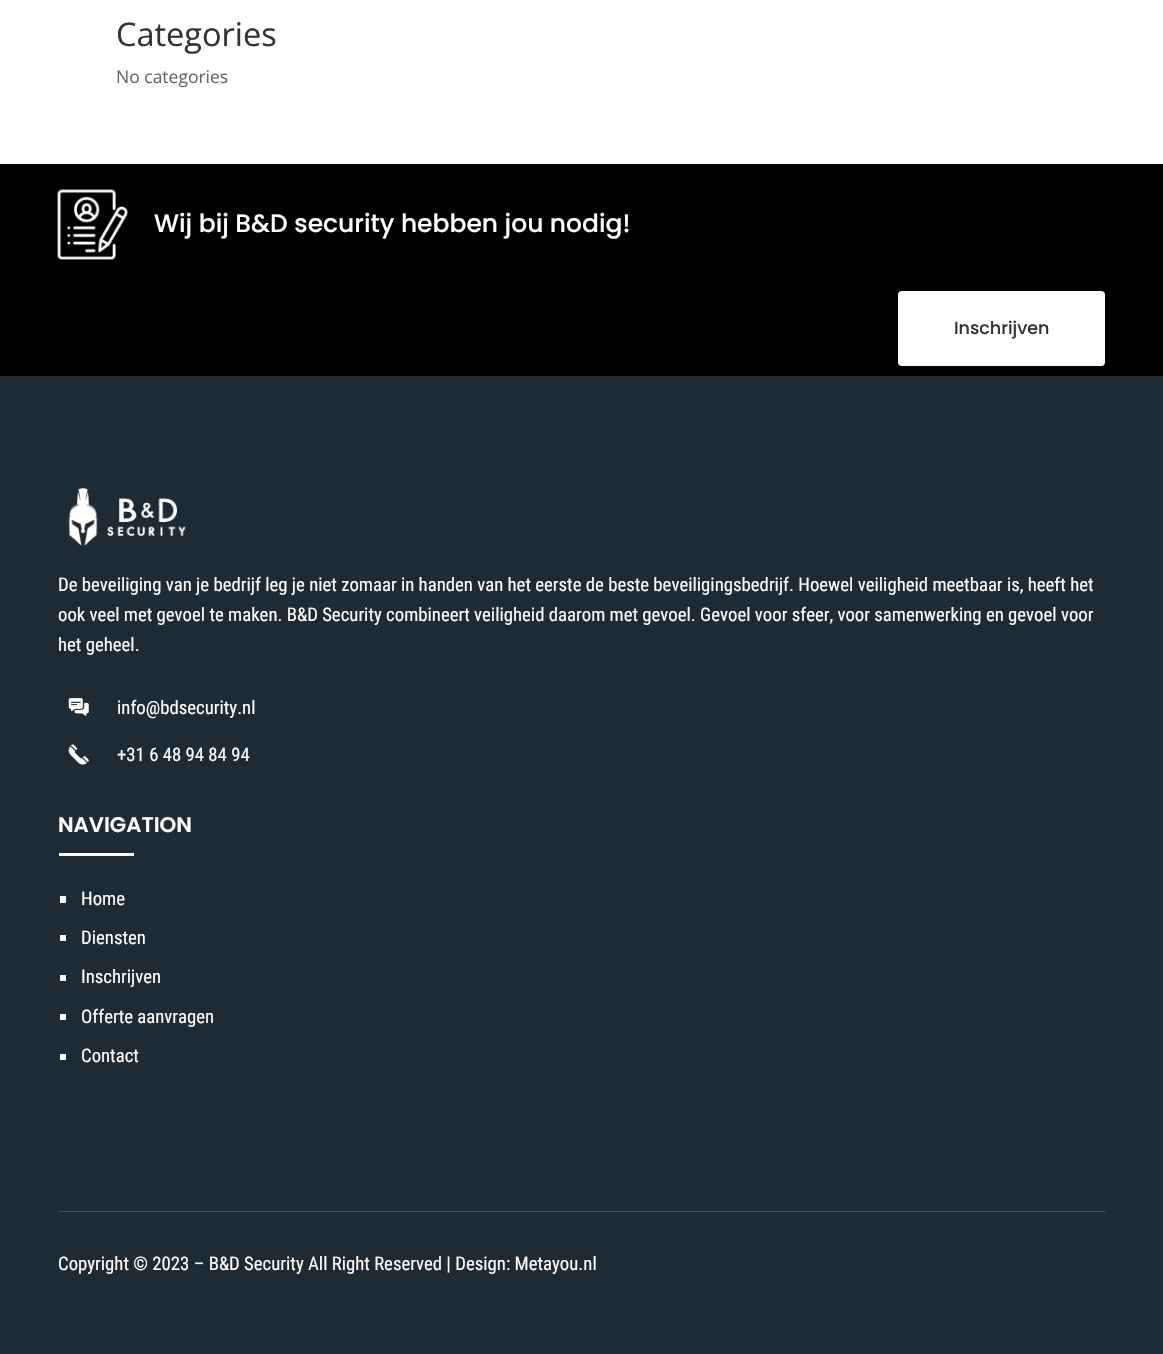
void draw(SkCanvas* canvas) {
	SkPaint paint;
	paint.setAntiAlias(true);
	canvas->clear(0xffffffff);
	SkFont f1(fontMgr->matchFamilyStyle("Open Sans", SkFontStyle::Normal()), 32.5);
	f1.setSubpixel(true);
	paint.setColor(0xff333333);
	canvas->drawString("Categories", 116, 46, f1, paint);
	SkFont f2(fontMgr->matchFamilyStyle("Open Sans", SkFontStyle::Normal()), 17.5);
	f2.setSubpixel(true);
	paint.setColor(0xff666666);
	canvas->drawString("No categories", 116, 83, f2, paint);
	paint.setColor(0xff000000);
	canvas->drawRect(SkRect::MakeXYWH(0, 164, 1163, 212), paint);
	canvas->drawImageRect(SkImages::DeferredFromEncodedData(SkData::MakeFromFileName("img1.png")), SkRect::MakeXYWH(57, 189, 71, 71), SkSamplingOptions());
	SkFont f3(fontMgr->matchFamilyStyle("Poppins", SkFontStyle(500, SkFontStyle::kNormal_Width, SkFontStyle::kUpright_Slant)), 25);
	f3.setSubpixel(true);
	paint.setColor(0xffffffff);
	canvas->drawString("Wij bij B&D security hebben jou nodig!", 154, 232, f3, paint);
	canvas->drawRoundRect(SkRect::MakeXYWH(898, 291, 207, 75), 4, 4, paint);
	SkFont f4(fontMgr->matchFamilyStyle("Poppins", SkFontStyle(500, SkFontStyle::kNormal_Width, SkFontStyle::kUpright_Slant)), 17.5);
	f4.setSubpixel(true);
	paint.setColor(0xff333333);
	canvas->drawString("Inschrijven", 954, 334, f4, paint);
	paint.setColor(0xff1e2a34);
	canvas->drawRect(SkRect::MakeXYWH(0, 376, 1163, 978), paint);
	canvas->drawImageRect(SkImages::DeferredFromEncodedData(SkData::MakeFromFileName("img2.png")), SkRect::MakeXYWH(68, 488, 118, 58), SkSamplingOptions());
	SkFont f5(fontMgr->matchFamilyStyle("Roboto Condensed", SkFontStyle::Normal()), 18.75);
	f5.setSubpixel(true);
	paint.setColor(0xffffffff);
	canvas->drawString("De beveiliging van je bedrijf leg je niet zomaar in handen van het eerste de beste beveiligingsbedrijf. Hoewel veiligheid meetbaar is, heeft het", 58, 591, f5, paint);
	canvas->drawString("ook veel met gevoel te maken. B&D Security combineert veiligheid daarom met gevoel. Gevoel voor sfeer, voor samenwerking en gevoel voor", 58, 621, f5, paint);
	canvas->drawString("het geheel.", 58, 651, f5, paint);
	canvas->drawImageRect(SkImages::DeferredFromEncodedData(SkData::MakeFromFileName("img3.png")), SkRect::MakeXYWH(68, 698, 21, 18), SkSamplingOptions());
	canvas->drawString("info@bdsecurity.nl", 117, 714, f5, paint);
	canvas->drawImageRect(SkImages::DeferredFromEncodedData(SkData::MakeFromFileName("img4.png")), SkRect::MakeXYWH(68, 744, 21, 21), SkSamplingOptions());
	canvas->drawString("+31 6 48 94 84 94", 117, 761, f5, paint);
	SkFont f6(fontMgr->matchFamilyStyle("Poppins", SkFontStyle(600, SkFontStyle::kNormal_Width, SkFontStyle::kUpright_Slant)), 21.25);
	f6.setSubpixel(true);
	canvas->drawString("NAVIGATION", 58, 832, f6, paint);
	canvas->drawRect(SkRect::MakeXYWH(59, 853, 75, 3), paint);
	canvas->drawRect(SkRect::MakeXYWH(60, 896, 6, 7), paint);
	canvas->drawString("Home", 81, 905, f5, paint);
	canvas->drawRect(SkRect::MakeXYWH(60, 935, 6, 6), paint);
	canvas->drawString("Diensten", 81, 944, f5, paint);
	canvas->drawRect(SkRect::MakeXYWH(60, 975, 6, 6), paint);
	canvas->drawString("Inschrijven", 81, 983, f5, paint);
	canvas->drawRect(SkRect::MakeXYWH(60, 1014, 6, 6), paint);
	canvas->drawString("Offerte aanvragen", 81, 1023, f5, paint);
	canvas->drawRect(SkRect::MakeXYWH(60, 1054, 6, 6), paint);
	canvas->drawString("Contact", 81, 1062, f5, paint);
	paint.setColor(0xff49525b);
	canvas->drawRect(SkRect::MakeXYWH(59, 1211, 1046, 1), paint);
	paint.setColor(0xffffffff);
	canvas->drawString("Copyright © 2023 – B&D Security All Right Reserved | Design: Metayou.nl", 58, 1270, f5, paint);
}
